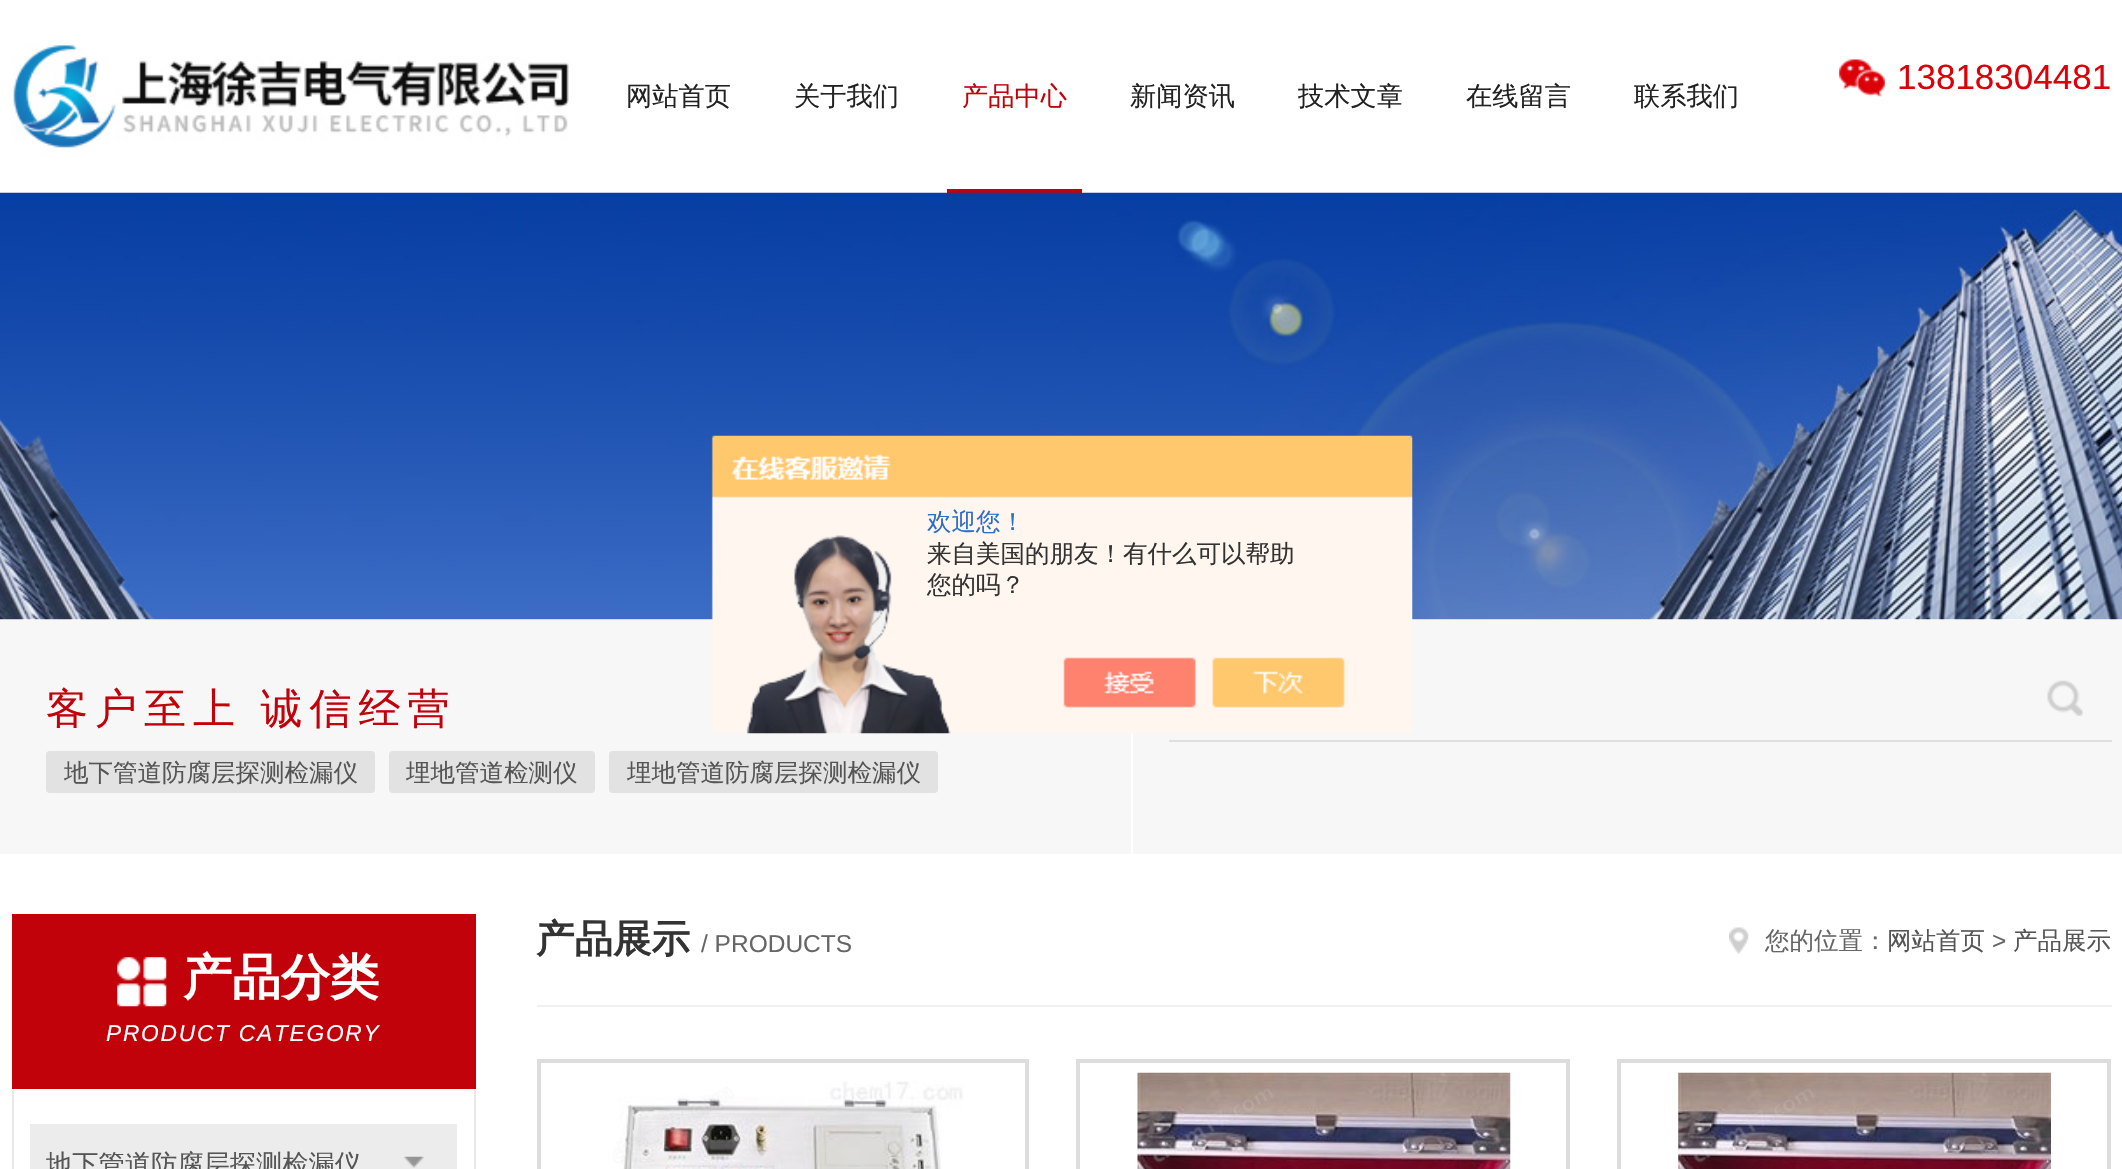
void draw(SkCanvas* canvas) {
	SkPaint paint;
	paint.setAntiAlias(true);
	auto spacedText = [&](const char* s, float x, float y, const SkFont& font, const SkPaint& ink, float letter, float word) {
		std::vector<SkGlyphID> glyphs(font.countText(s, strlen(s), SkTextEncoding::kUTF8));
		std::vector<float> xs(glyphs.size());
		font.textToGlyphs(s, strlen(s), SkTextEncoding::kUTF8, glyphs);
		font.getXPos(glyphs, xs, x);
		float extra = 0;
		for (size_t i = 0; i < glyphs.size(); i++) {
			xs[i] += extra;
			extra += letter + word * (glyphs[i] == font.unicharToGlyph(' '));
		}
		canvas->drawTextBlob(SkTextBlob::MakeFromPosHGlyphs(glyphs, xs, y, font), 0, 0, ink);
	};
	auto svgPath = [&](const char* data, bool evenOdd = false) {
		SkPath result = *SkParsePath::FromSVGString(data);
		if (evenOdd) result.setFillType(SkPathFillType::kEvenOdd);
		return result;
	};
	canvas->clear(0xffffffff);
	canvas->save();
	canvas->clipPath(svgPath("M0 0H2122V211H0ZM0 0H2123V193H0Z", true), true);
	paint.setColor(0xffa9a9a9);
	paint.setMaskFilter(SkMaskFilter::MakeBlur(kNormal_SkBlurStyle, 4.5));
	canvas->drawRect(SkRect::MakeXYWH(0, 0, 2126, 196), paint);
	paint.setMaskFilter(nullptr);
	canvas->restore();
	canvas->drawImageRect(SkImages::DeferredFromEncodedData(SkData::MakeFromFileName("img1.png")), SkRect::MakeXYWH(12, 45, 557, 148), SkSamplingOptions());
	canvas->drawImageRect(SkImages::DeferredFromEncodedData(SkData::MakeFromFileName("img2.png")), SkRect::MakeXYWH(1839, 59, 46, 38), SkSamplingOptions());
	SkFont f1(fontMgr->matchFamilyStyle("Liberation Sans", SkFontStyle::Normal()), 35);
	f1.setSubpixel(true);
	paint.setColor(0xffdc0009);
	canvas->drawString("13818304481", 1897, 89, f1, paint);
	SkFont f2(fontMgr->matchFamilyStyle("WenQuanYi Zen Hei", SkFontStyle(500, SkFontStyle::kNormal_Width, SkFontStyle::kUpright_Slant)), 26.25);
	f2.setSubpixel(true);
	paint.setColor(0xff222222);
	canvas->drawString("网站首页", 626, 105, f2, paint);
	canvas->drawString("关于我们", 794, 105, f2, paint);
	paint.setColor(0xffc2020a);
	canvas->drawString("产品中心", 962, 105, f2, paint);
	canvas->drawRect(SkRect::MakeXYWH(947, 189, 135, 4), paint);
	paint.setColor(0xff222222);
	canvas->drawString("新闻资讯", 1130, 105, f2, paint);
	canvas->drawString("技术文章", 1298, 105, f2, paint);
	canvas->drawString("在线留言", 1466, 105, f2, paint);
	canvas->drawString("联系我们", 1634, 105, f2, paint);
	canvas->drawImageRect(SkImages::DeferredFromEncodedData(SkData::MakeFromFileName("img3.png")), SkRect::MakeXYWH(0, 192, 2122, 428), SkSamplingOptions());
	paint.setColor(0xfff7f7f7);
	canvas->drawRect(SkRect::MakeXYWH(0, 620, 2122, 234), paint);
	paint.setColor(0xffffffff);
	canvas->drawRect(SkRect::MakeXYWH(1131, 733, 2, 121), paint);
	paint.setColor(0xffdfdfdf);
	canvas->drawRect(SkRect::MakeXYWH(1167, 740, 945, 2), paint);
	paint.setColor(0xfff7f7f7);
	canvas->drawRect(SkRect::MakeXYWH(1167, 733, 2, 9), paint);
	canvas->drawImageRect(SkImages::DeferredFromEncodedData(SkData::MakeFromFileName("img4.png")), SkRect::MakeXYWH(711, 435, 702, 299), SkSamplingOptions());
	SkFont f3(fontMgr->matchFamilyStyle("WenQuanYi Zen Hei", SkFontStyle(500, SkFontStyle::kNormal_Width, SkFontStyle::kUpright_Slant)), 24.5);
	f3.setSubpixel(true);
	paint.setColor(0xff2e6ec6);
	canvas->drawString("欢迎您！", 927, 530, f3, paint);
	paint.setColor(0xff333333);
	canvas->drawString("来自美国的朋友！有什么可以帮助", 927, 562, f3, paint);
	canvas->drawString("您的吗？", 927, 593, f3, paint);
	SkFont f4(fontMgr->matchFamilyStyle("WenQuanYi Zen Hei", SkFontStyle(500, SkFontStyle::kNormal_Width, SkFontStyle::kUpright_Slant)), 42);
	f4.setSubpixel(true);
	paint.setColor(0xffc2020a);
	spacedText("客户至上 诚信经营", 46, 723, f4, paint, 7, -1);
	paint.setColor(0xffe2e2e2);
	canvas->drawRoundRect(SkRect::MakeXYWH(46, 751, 329, 42), 4, 4, paint);
	paint.setColor(0xff555555);
	canvas->drawString("地下管道防腐层探测检漏仪", 64, 781, f3, paint);
	paint.setColor(0xffe2e2e2);
	canvas->drawRoundRect(SkRect::MakeXYWH(389, 751, 206, 42), 4, 4, paint);
	paint.setColor(0xff555555);
	canvas->drawString("埋地管道检测仪", 406, 781, f3, paint);
	paint.setColor(0xffe2e2e2);
	canvas->drawRoundRect(SkRect::MakeXYWH(609, 751, 329, 42), 4, 4, paint);
	paint.setColor(0xff555555);
	canvas->drawString("埋地管道防腐层探测检漏仪", 627, 781, f3, paint);
	canvas->drawImageRect(SkImages::DeferredFromEncodedData(SkData::MakeFromFileName("img5.png")), SkRect::MakeXYWH(2047, 680, 36, 36), SkSamplingOptions());
	paint.setColor(0xfff1f1f1);
	canvas->drawRect(SkRect::MakeXYWH(537, 1005, 1575, 2), paint);
	SkFont f5(fontMgr->matchFamilyStyle("WenQuanYi Zen Hei", SkFontStyle::Bold()), 38.5);
	f5.setSubpixel(true);
	paint.setColor(0xff333333);
	canvas->drawString("产品展示", 536, 952, f5, paint);
	SkFont f6(fontMgr->matchFamilyStyle("Liberation Sans", SkFontStyle::Normal()), 24.5);
	f6.setSubpixel(true);
	paint.setColor(0xff666666);
	canvas->drawString("/ PRODUCTS", 701, 952, f6, paint);
	canvas->drawImageRect(SkImages::DeferredFromEncodedData(SkData::MakeFromFileName("img6.png")), SkRect::MakeXYWH(1729, 927, 20, 27), SkSamplingOptions());
	canvas->drawString("您的位置：", 1765, 949, f3, paint);
	paint.setColor(0xff555555);
	canvas->drawString("网站首页", 1887, 949, f3, paint);
	paint.setColor(0xff666666);
	canvas->drawString(">", 1992, 949, f6, paint);
	paint.setColor(0xff555555);
	canvas->drawString("产品展示", 2013, 949, f3, paint);
	paint.setStroke(true);
	paint.setStrokeWidth(4);
	paint.setColor(0xffdddddd);
	canvas->drawRect(SkRect::MakeXYWH(539, 1061, 488, 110), paint);
	canvas->drawImageRect(SkImages::DeferredFromEncodedData(SkData::MakeFromFileName("img7.png")), SkRect::MakeXYWH(613, 1081, 350, 88), SkSamplingOptions());
	canvas->drawRect(SkRect::MakeXYWH(1078, 1061, 490, 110), paint);
	canvas->drawImageRect(SkImages::DeferredFromEncodedData(SkData::MakeFromFileName("img8.png")), SkRect::MakeXYWH(1137, 1072, 374, 97), SkSamplingOptions());
	canvas->drawRect(SkRect::MakeXYWH(1619, 1061, 490, 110), paint);
	canvas->drawImageRect(SkImages::DeferredFromEncodedData(SkData::MakeFromFileName("img9.png")), SkRect::MakeXYWH(1678, 1072, 373, 97), SkSamplingOptions());
	paint.setStroke(false);
	paint.setColor(0xffc2020a);
	canvas->drawRect(SkRect::MakeXYWH(12, 914, 464, 175), paint);
	canvas->drawImageRect(SkImages::DeferredFromEncodedData(SkData::MakeFromFileName("img10.png")), SkRect::MakeXYWH(117, 957, 50, 50), SkSamplingOptions());
	SkFont f7(fontMgr->matchFamilyStyle("WenQuanYi Zen Hei", SkFontStyle::Bold()), 49);
	f7.setSubpixel(true);
	paint.setColor(0xffffffff);
	canvas->drawString("产品分类", 183, 994, f7, paint);
	SkFont f8(fontMgr->matchFamilyStyle("Liberation Sans", SkFontStyle::Italic()), 22.75);
	f8.setSubpixel(true);
	spacedText("PRODUCT CATEGORY", 106, 1041, f8, paint, 1.75, 0);
	paint.setColor(0xffe8e8e8);
	canvas->drawRect(SkRect::MakeXYWH(474, 1089, 2, 80), paint);
	canvas->drawRect(SkRect::MakeXYWH(12, 1089, 2, 80), paint);
	paint.setColor(0xffececec);
	canvas->drawRect(SkRect::MakeXYWH(30, 1124, 427, 45), paint);
	paint.setColor(0xff555555);
	canvas->drawString("地下管道防腐层探测检漏仪", 46, 1173, f2, paint);
	canvas->drawImageRect(SkImages::DeferredFromEncodedData(SkData::MakeFromFileName("img11.png")), SkRect::MakeXYWH(404, 1156, 20, 12), SkSamplingOptions());
}
